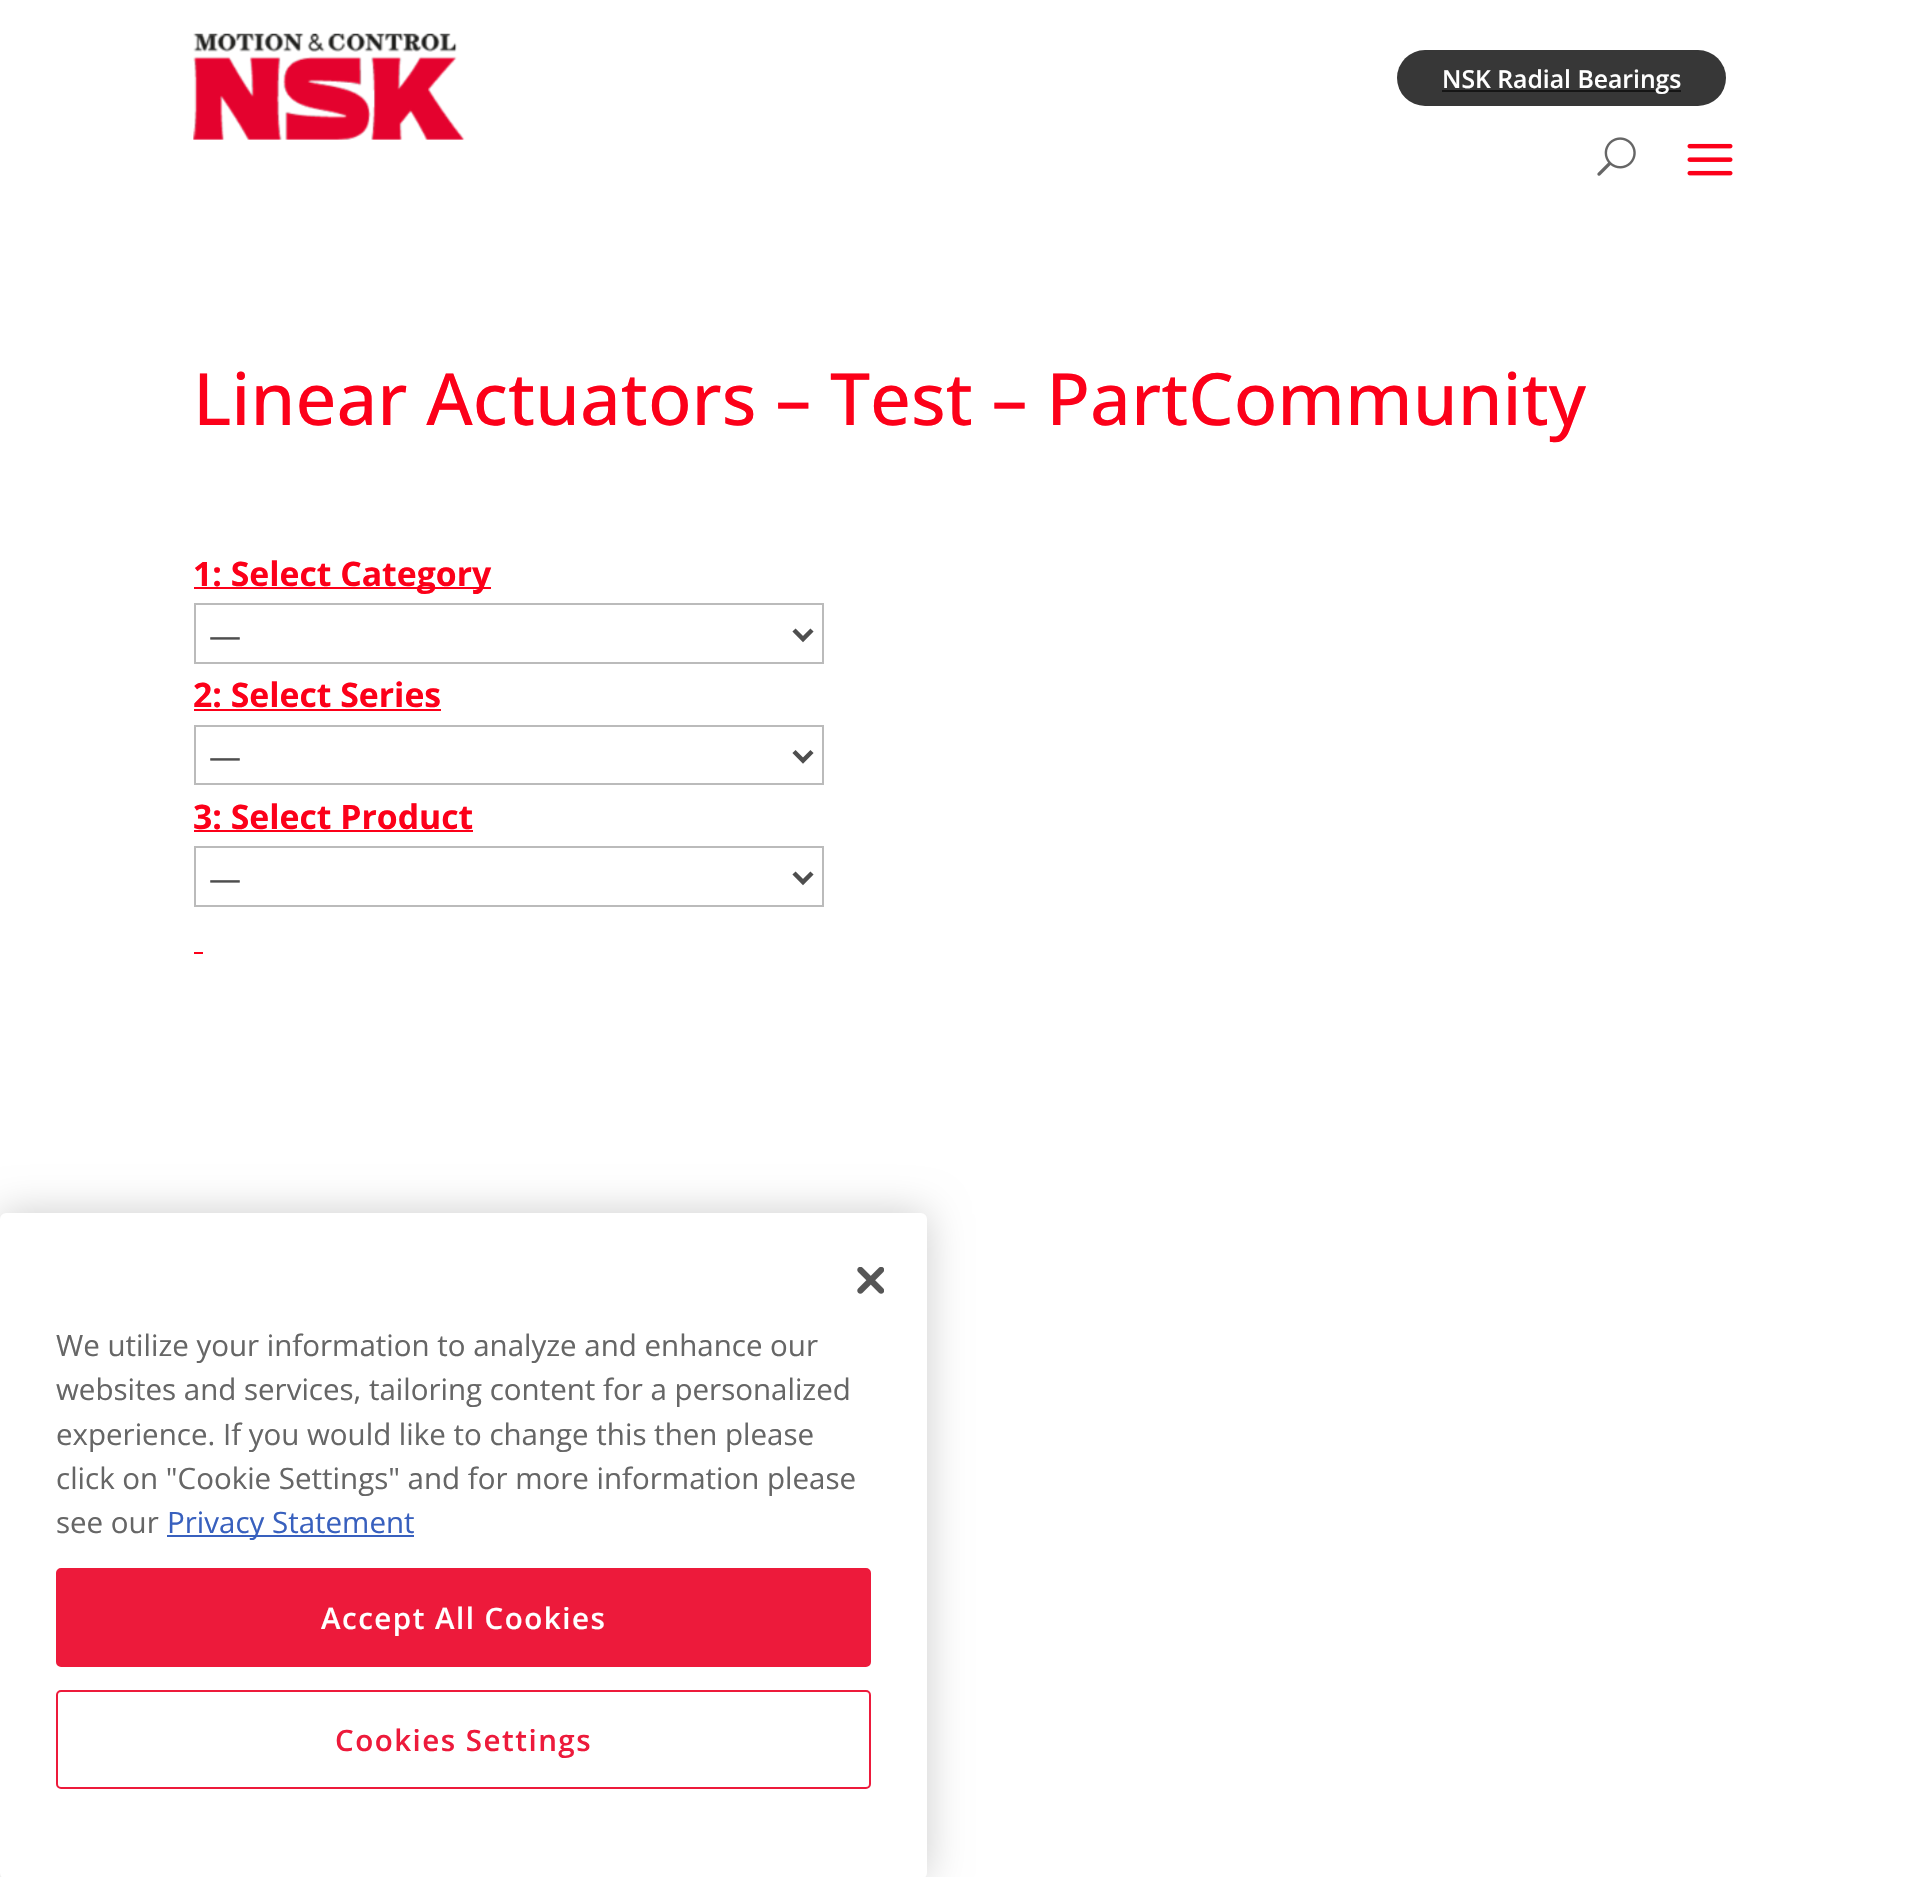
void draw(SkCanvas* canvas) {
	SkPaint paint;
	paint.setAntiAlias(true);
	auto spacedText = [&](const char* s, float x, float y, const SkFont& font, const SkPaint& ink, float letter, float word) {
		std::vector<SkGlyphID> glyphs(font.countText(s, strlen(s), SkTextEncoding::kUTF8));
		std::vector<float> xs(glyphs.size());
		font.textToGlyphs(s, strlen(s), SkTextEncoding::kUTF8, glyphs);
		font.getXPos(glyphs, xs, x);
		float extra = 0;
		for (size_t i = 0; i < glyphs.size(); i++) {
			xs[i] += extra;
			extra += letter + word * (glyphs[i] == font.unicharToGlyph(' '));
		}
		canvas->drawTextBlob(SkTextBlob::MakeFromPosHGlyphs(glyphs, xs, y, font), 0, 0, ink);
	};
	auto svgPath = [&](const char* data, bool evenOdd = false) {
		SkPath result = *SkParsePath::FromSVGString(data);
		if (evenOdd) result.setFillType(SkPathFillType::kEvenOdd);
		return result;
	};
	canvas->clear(0xffffffff);
	canvas->drawImageRect(SkImages::DeferredFromEncodedData(SkData::MakeFromFileName("img1.png")), SkRect::MakeXYWH(193, 33, 272, 107), SkSamplingOptions());
	paint.setColor(0xff373737);
	canvas->drawRoundRect(SkRect::MakeXYWH(1397, 50, 329, 56), 28, 28, paint);
	paint.setColor(0xff161616);
	canvas->drawRect(SkRect::MakeXYWH(1442, 90, 239, 2), paint);
	SkFont f1(fontMgr->matchFamilyStyle("Open Sans", SkFontStyle(600, SkFontStyle::kNormal_Width, SkFontStyle::kUpright_Slant)), 24.75);
	f1.setSubpixel(true);
	paint.setColor(0xffffffff);
	canvas->drawString("NSK Radial Bearings", 1442, 88, f1, paint);
	canvas->drawImageRect(SkImages::DeferredFromEncodedData(SkData::MakeFromFileName("img2.png")), SkRect::MakeXYWH(1597, 137, 39, 39), SkSamplingOptions());
	canvas->drawImageRect(SkImages::DeferredFromEncodedData(SkData::MakeFromFileName("img3.png")), SkRect::MakeXYWH(1687, 143, 46, 33), SkSamplingOptions());
	SkFont f2(fontMgr->matchFamilyStyle("Open Sans", SkFontStyle(500, SkFontStyle::kNormal_Width, SkFontStyle::kUpright_Slant)), 72);
	f2.setSubpixel(true);
	paint.setColor(0xfffc0019);
	canvas->drawString("Linear Actuators – Test – PartCommunity", 193, 425, f2, paint);
	canvas->drawRect(SkRect::MakeXYWH(194, 587, 297, 2), paint);
	SkFont f3(fontMgr->matchFamilyStyle("Open Sans", SkFontStyle::Bold()), 33.75);
	f3.setSubpixel(true);
	canvas->drawString("1: Select Category", 193, 586, f3, paint);
	paint.setStroke(true);
	paint.setStrokeWidth(2);
	paint.setColor(0xffbbbbbb);
	canvas->drawRect(SkRect::MakeXYWH(195, 604, 628, 59), paint);
	paint.setStrokeWidth(4.5);
	paint.setColor(0xff4e4e4e);
	canvas->drawPath(svgPath("M794 630L803 639L812 630"), paint);
	SkFont f4(fontMgr->matchFamilyStyle("Open Sans", SkFontStyle::Normal()), 32);
	f4.setSubpixel(true);
	paint.setStroke(false);
	canvas->drawString("—", 209, 647, f4, paint);
	paint.setColor(0xfffc0019);
	canvas->drawString("2: Select Series", 193, 707, f3, paint);
	canvas->drawRect(SkRect::MakeXYWH(194, 709, 247, 2), paint);
	paint.setStroke(true);
	paint.setStrokeWidth(2);
	paint.setColor(0xffbbbbbb);
	canvas->drawRect(SkRect::MakeXYWH(195, 726, 628, 58), paint);
	paint.setStrokeWidth(4.5);
	paint.setColor(0xff4e4e4e);
	canvas->drawPath(svgPath("M794 751.5L803 760.5L812 751.5"), paint);
	paint.setStroke(false);
	canvas->drawString("—", 209, 768, f4, paint);
	paint.setColor(0xfffc0019);
	canvas->drawString("3: Select Product", 193, 829, f3, paint);
	canvas->drawRect(SkRect::MakeXYWH(194, 830, 279, 2), paint);
	paint.setStroke(true);
	paint.setStrokeWidth(2);
	paint.setColor(0xffbbbbbb);
	canvas->drawRect(SkRect::MakeXYWH(195, 847, 628, 59), paint);
	paint.setStrokeWidth(4.5);
	paint.setColor(0xff4e4e4e);
	canvas->drawPath(svgPath("M794 873L803 882L812 873"), paint);
	paint.setStroke(false);
	canvas->drawString("—", 209, 890, f4, paint);
	paint.setColor(0xfffc0019);
	canvas->drawRect(SkRect::MakeXYWH(194, 952, 9, 2), paint);
	paint.setColor(0x33000000);
	paint.setMaskFilter(SkMaskFilter::MakeBlur(kNormal_SkBlurStyle, 20));
	canvas->drawRoundRect(SkRect::MakeXYWH(0, 1213, 927, 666), 6, 6, paint);
	paint.setMaskFilter(nullptr);
	paint.setColor(0xffffffff);
	canvas->drawRoundRect(SkRect::MakeXYWH(0, 1213, 927, 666), 6, 6, paint);
	canvas->drawImageRect(SkImages::DeferredFromEncodedData(SkData::MakeFromFileName("img4.png")), SkRect::MakeXYWH(857, 1267, 27, 27), SkSamplingOptions());
	SkFont f5(fontMgr->matchFamilyStyle("Open Sans", SkFontStyle::Normal()), 29.5);
	f5.setSubpixel(true);
	paint.setColor(0xff666666);
	canvas->drawString("We utilize your information to analyze and enhance our", 56, 1356, f5, paint);
	canvas->drawString("websites and services, tailoring content for a personalized", 56, 1400, f5, paint);
	canvas->drawString("experience. If you would like to change this then please", 56, 1445, f5, paint);
	canvas->drawString("click on \"Cookie Settings\" and for more information please", 56, 1489, f5, paint);
	canvas->drawString("see our", 56, 1533, f5, paint);
	paint.setColor(0xff3860be);
	canvas->drawRect(SkRect::MakeXYWH(167, 1535, 247, 2), paint);
	canvas->drawString("Privacy Statement", 167, 1533, f5, paint);
	paint.setColor(0xffed1a3b);
	canvas->drawRoundRect(SkRect::MakeXYWH(57, 1569, 813, 97), 4, 4, paint);
	paint.setStroke(true);
	paint.setStrokeWidth(2);
	canvas->drawRoundRect(SkRect::MakeXYWH(57, 1569, 813, 97), 4, 4, paint);
	SkFont f6(fontMgr->matchFamilyStyle("Open Sans", SkFontStyle(600, SkFontStyle::kNormal_Width, SkFontStyle::kUpright_Slant)), 29.5);
	f6.setSubpixel(true);
	paint.setStroke(false);
	paint.setColor(0xffffffff);
	spacedText("Accept All Cookies", 321, 1629, f6, paint, 1.5, 0);
	paint.setStroke(true);
	paint.setColor(0xffed1a3b);
	canvas->drawRoundRect(SkRect::MakeXYWH(57, 1691, 813, 97), 4, 4, paint);
	paint.setStroke(false);
	spacedText("Cookies Settings", 335, 1751, f6, paint, 1.5, 0);
}
